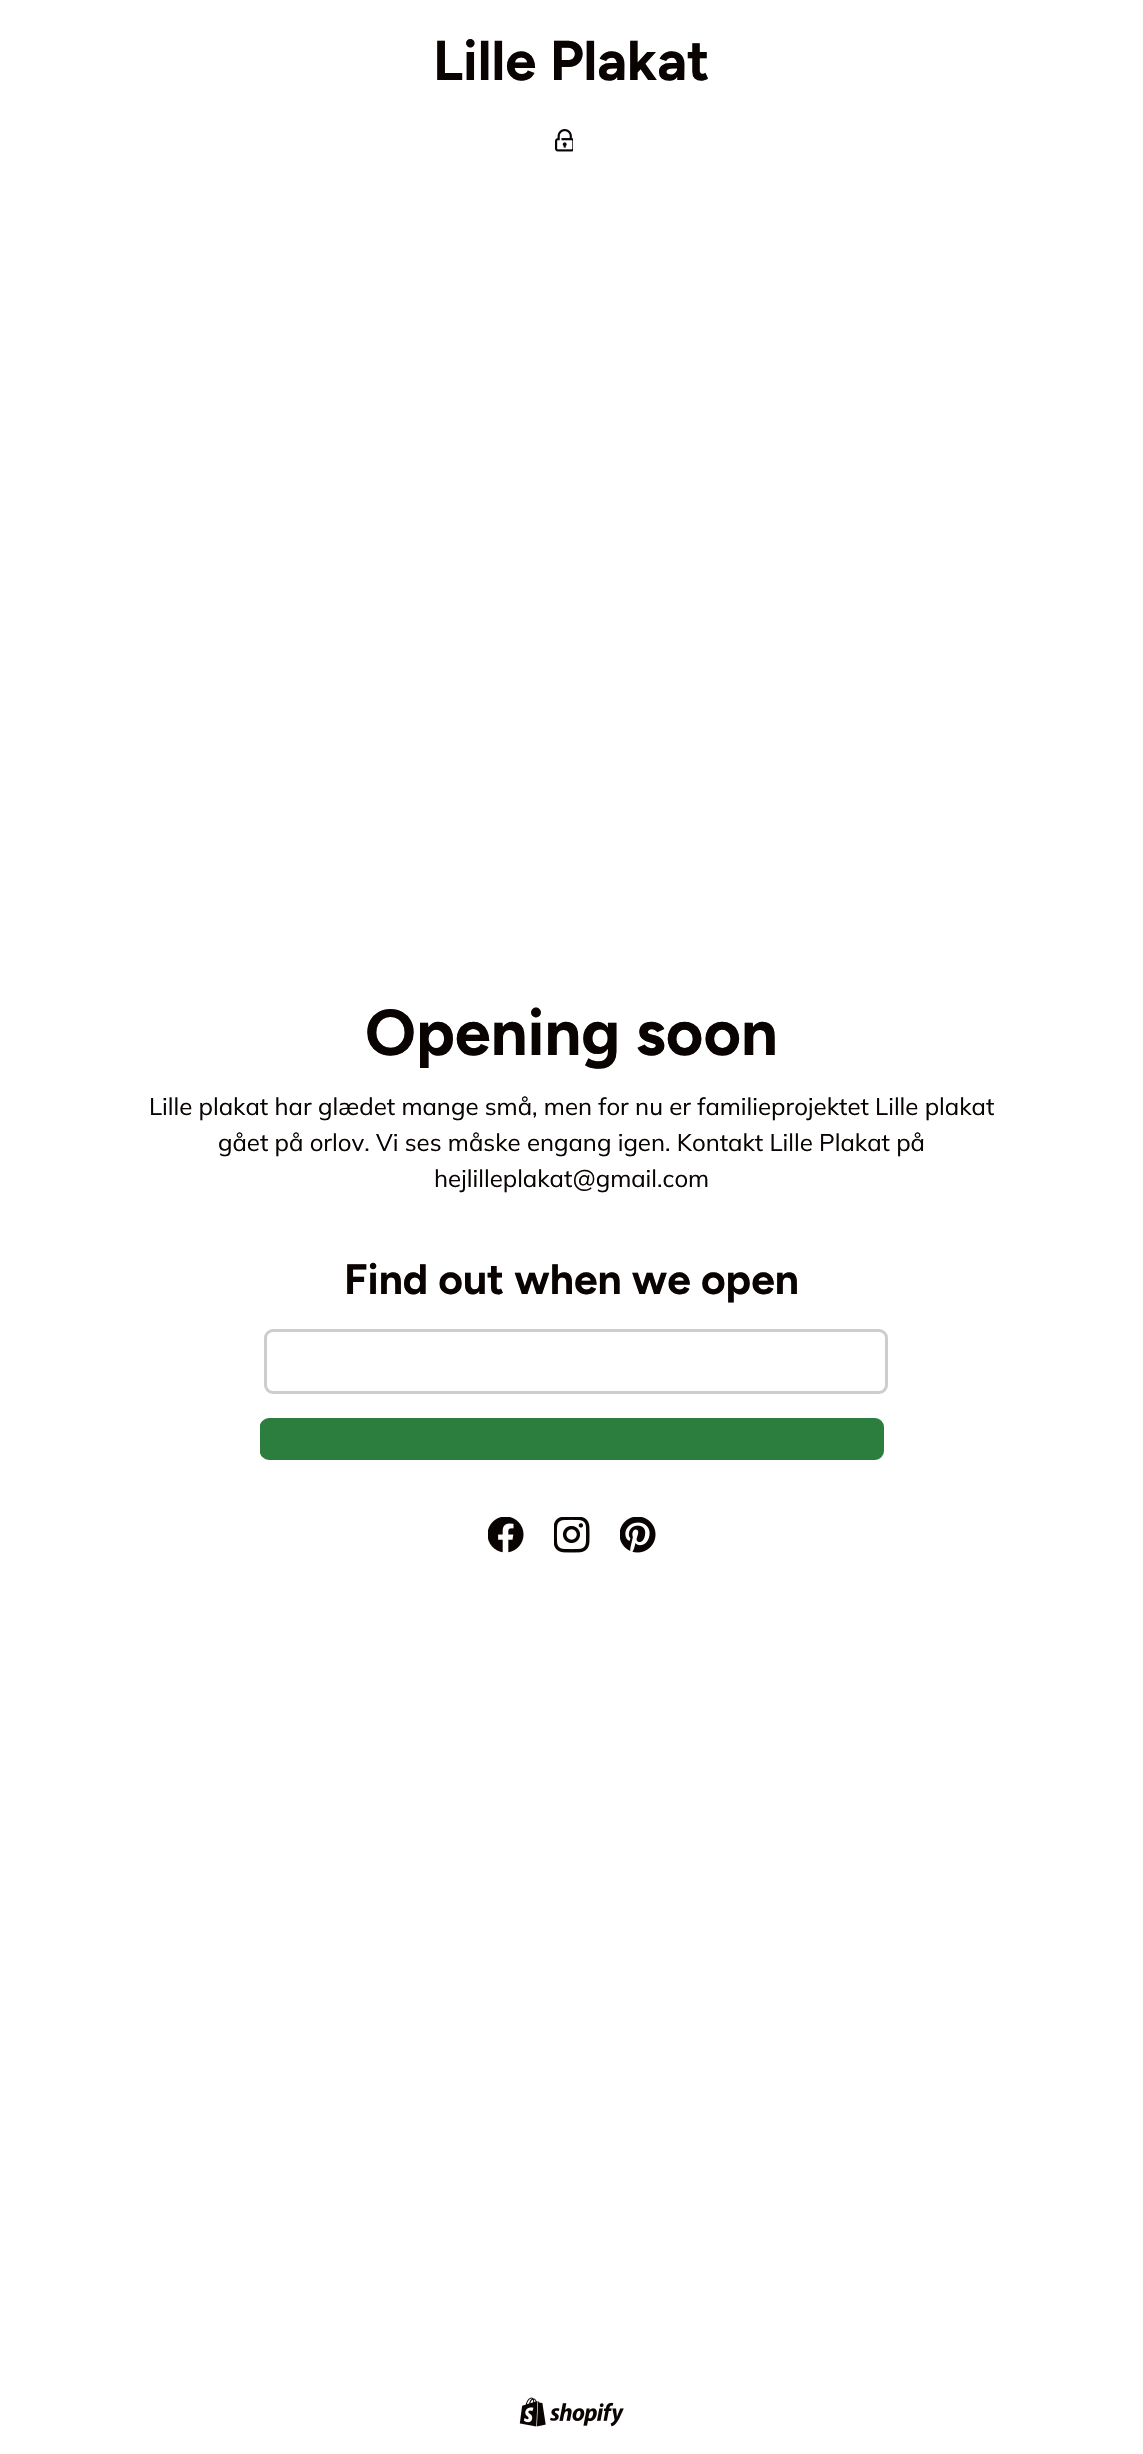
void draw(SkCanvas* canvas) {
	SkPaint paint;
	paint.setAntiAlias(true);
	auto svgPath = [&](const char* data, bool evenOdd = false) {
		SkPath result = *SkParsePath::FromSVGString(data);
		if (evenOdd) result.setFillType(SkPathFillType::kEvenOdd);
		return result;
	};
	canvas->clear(0xffffffff);
	SkFont f1(fontMgr->matchFamilyStyle("Figtree", SkFontStyle::Bold()), 56);
	f1.setSubpixel(true);
	paint.setColor(0xff090302);
	canvas->drawString("Lille Plakat", 433, 80, f1, paint);
	canvas->drawImageRect(SkImages::DeferredFromEncodedData(SkData::MakeFromFileName("img1.png")), SkRect::MakeXYWH(555, 129, 18, 23), SkSamplingOptions());
	SkFont f2(fontMgr->matchFamilyStyle("Figtree", SkFontStyle::Bold()), 64.75);
	f2.setSubpixel(true);
	canvas->drawString("Opening soon", 365, 1055, f2, paint);
	SkFont f3(fontMgr->matchFamilyStyle("Muli", SkFontStyle::Normal()), 24);
	f3.setSubpixel(true);
	canvas->drawString("Lille plakat har glædet mange små, men for nu er familieprojektet Lille plakat", 149, 1115, f3, paint);
	canvas->drawString("gået på orlov. Vi ses måske engang igen. Kontakt Lille Plakat på", 218, 1151, f3, paint);
	canvas->drawString("hejlilleplakat@gmail.com", 434, 1187, f3, paint);
	SkFont f4(fontMgr->matchFamilyStyle("Figtree", SkFontStyle::Bold()), 42.5);
	f4.setSubpixel(true);
	canvas->drawString("Find out when we open", 344, 1294, f4, paint);
	paint.setStroke(true);
	paint.setStrokeWidth(3);
	paint.setColor(0xffcecdcc);
	canvas->drawRoundRect(SkRect::MakeXYWH(265.5, 1330.5, 621, 62), 7.5, 7.5, paint);
	canvas->save();
	canvas->clipPath(svgPath("M269 1418H875C880 1418 884 1422 884 1427V1451C884 1456 880 1460 875 1460H269C264 1460 260 1456 260 1451V1427C260 1422 264 1418 269 1418Z"), true);
	paint.setStroke(false);
	{
		const SkColor colors[] = {0xff519b62, 0xff2c7e3f, 0xff2c7e3f};
		const float stops[] = {0.6, 0.6, 1};
		const SkPoint ends[] = {{-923, 1220}, {830, 1657}};
		paint.setShader(SkGradientShader::MakeLinear(ends, colors, stops, 3, SkTileMode::kClamp));
		paint.setAlpha(255);
	}
	canvas->drawRect(SkRect::MakeXYWH(260, 1421, 621, 36), paint);
	canvas->restore();
	paint.setStroke(true);
	paint.setShader(nullptr);
	paint.setColor(0xff2c7e3f);
	canvas->drawRoundRect(SkRect::MakeXYWH(261.5, 1419.5, 621, 39), 7.5, 7.5, paint);
	canvas->drawImageRect(SkImages::DeferredFromEncodedData(SkData::MakeFromFileName("img2.png")), SkRect::MakeXYWH(488, 1517, 36, 36), SkSamplingOptions());
	canvas->drawImageRect(SkImages::DeferredFromEncodedData(SkData::MakeFromFileName("img3.png")), SkRect::MakeXYWH(554, 1517, 36, 36), SkSamplingOptions());
	canvas->drawImageRect(SkImages::DeferredFromEncodedData(SkData::MakeFromFileName("img4.png")), SkRect::MakeXYWH(620, 1517, 36, 36), SkSamplingOptions());
	canvas->drawImageRect(SkImages::DeferredFromEncodedData(SkData::MakeFromFileName("img5.png")), SkRect::MakeXYWH(519, 2397, 105, 30), SkSamplingOptions());
}
